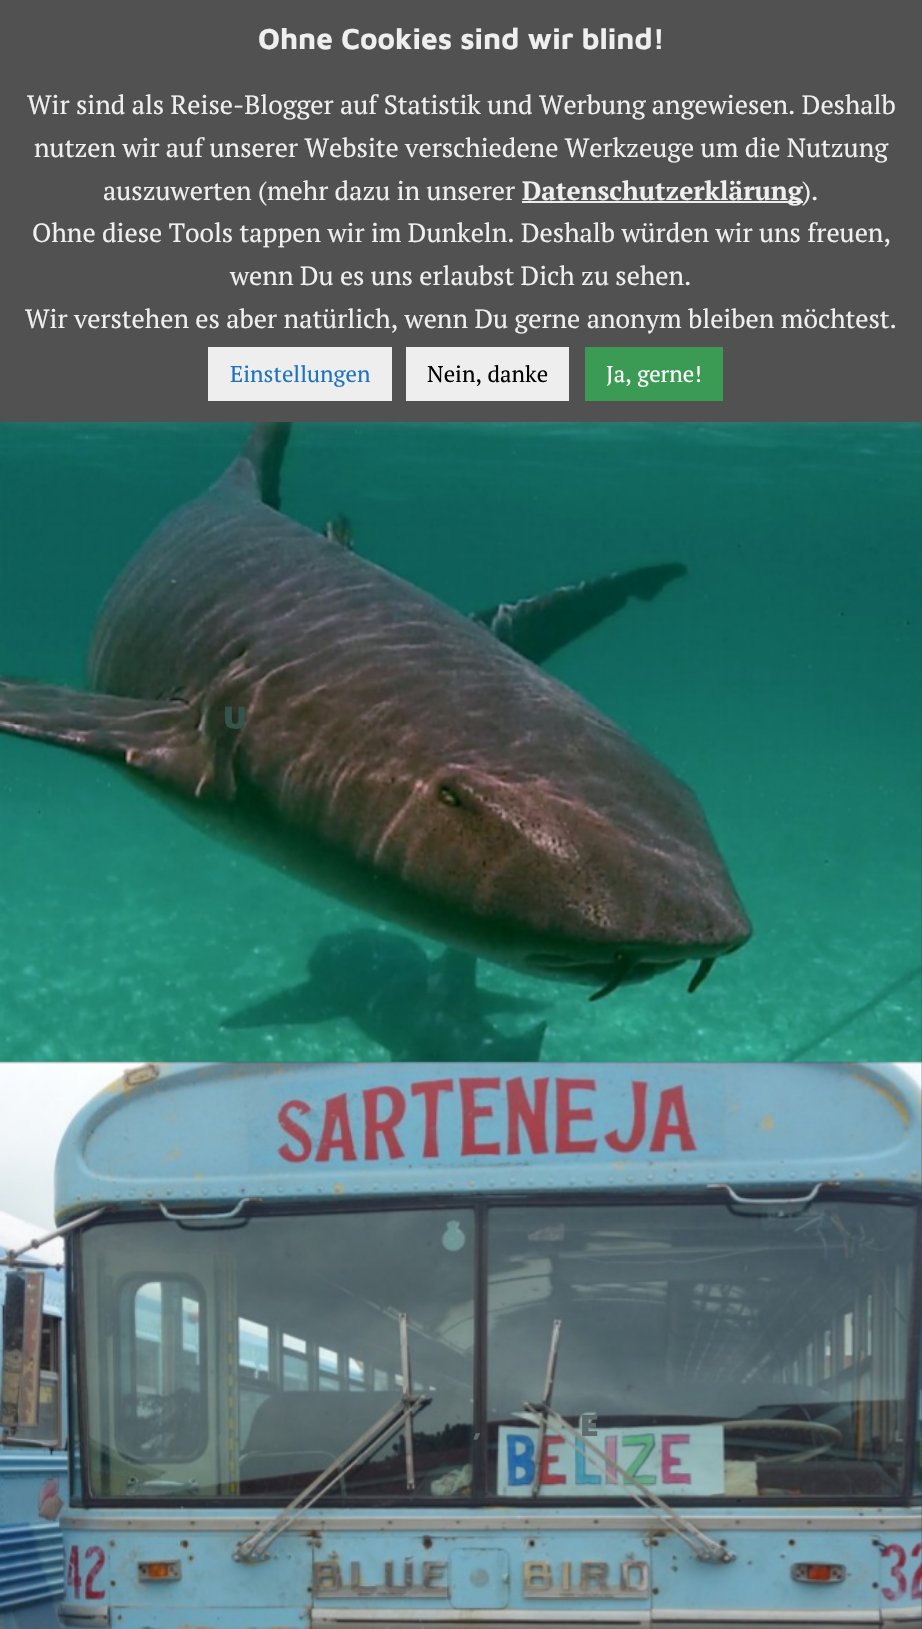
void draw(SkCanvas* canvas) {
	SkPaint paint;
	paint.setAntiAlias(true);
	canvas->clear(0xff2c3642);
	canvas->drawImageRect(SkImages::DeferredFromEncodedData(SkData::MakeFromFileName("img1.png")), SkRect::MakeXYWH(0, 422, 922, 641), SkSamplingOptions());
	paint.setColor(0x4dacabab);
	paint.setMaskFilter(SkMaskFilter::MakeBlur(kNormal_SkBlurStyle, 9));
	canvas->drawRect(SkRect::MakeXYWH(0, -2, 922, 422), paint);
	paint.setMaskFilter(nullptr);
	paint.setColor(0xff515151);
	canvas->drawRect(SkRect::MakeXYWH(0, 0, 922, 422), paint);
	SkFont f1(fontMgr->matchFamilyStyle("Maven Pro", SkFontStyle::Bold()), 29.75);
	f1.setSubpixel(true);
	paint.setColor(0xffefefef);
	canvas->drawString("Ohne Cookies sind wir blind!", 258, 49, f1, paint);
	SkFont f2(fontMgr->matchFamilyStyle("PT Serif", SkFontStyle::Normal()), 26.25);
	f2.setSubpixel(true);
	canvas->drawString("Wir sind als Reise-Blogger auf Statistik und Werbung angewiesen. Deshalb", 27, 114, f2, paint);
	canvas->drawString("nutzen wir auf unserer Website verschiedene Werkzeuge um die Nutzung", 34, 157, f2, paint);
	canvas->drawString("auszuwerten (mehr dazu in unserer", 103, 200, f2, paint);
	paint.setColor(0xffeeeeee);
	canvas->drawRect(SkRect::MakeXYWH(522, 201, 281, 2), paint);
	SkFont f3(fontMgr->matchFamilyStyle("PT Serif", SkFontStyle::Bold()), 26.25);
	f3.setSubpixel(true);
	paint.setColor(0xffefefef);
	canvas->drawString("Datenschutzerklärung", 522, 200, f3, paint);
	canvas->drawString(").", 802, 200, f2, paint);
	canvas->drawString("Ohne diese Tools tappen wir im Dunkeln. Deshalb würden wir uns freuen,", 32, 242, f2, paint);
	canvas->drawString("wenn Du es uns erlaubst Dich zu sehen.", 230, 285, f2, paint);
	canvas->drawString("Wir verstehen es aber natürlich, wenn Du gerne anonym bleiben möchtest.", 25, 328, f2, paint);
	paint.setColor(0xffeeeeee);
	canvas->drawRect(SkRect::MakeXYWH(208, 347, 184, 54), paint);
	SkFont f4(fontMgr->matchFamilyStyle("PT Serif", SkFontStyle::Normal()), 22.75);
	f4.setSubpixel(true);
	paint.setColor(0xff1e73be);
	canvas->drawString("Einstellungen", 230, 382, f4, paint);
	paint.setColor(0xffeeeeee);
	canvas->drawRect(SkRect::MakeXYWH(406, 347, 163, 54), paint);
	paint.setColor(0xff000000);
	canvas->drawString("Nein, danke", 427, 382, f4, paint);
	paint.setColor(0xff3b9b54);
	canvas->drawRect(SkRect::MakeXYWH(585, 347, 138, 54), paint);
	paint.setColor(0xffffffff);
	canvas->drawString("Ja, gerne!", 606, 382, f4, paint);
	SkFont f5(fontMgr->matchFamilyStyle("Maven Pro", SkFontStyle(900, SkFontStyle::kNormal_Width, SkFontStyle::kUpright_Slant)), 32);
	f5.setSubpixel(true);
	paint.setColor(0xff35534b);
	canvas->drawString("U", 223, 728, f5, paint);
	canvas->drawImageRect(SkImages::DeferredFromEncodedData(SkData::MakeFromFileName("img2.png")), SkRect::MakeXYWH(0, 1061, 922, 568), SkSamplingOptions());
	paint.setColor(0xff5e6c6d);
	canvas->drawString(",", 471, 1436, f5, paint);
	canvas->drawString("E", 580, 1436, f5, paint);
}
